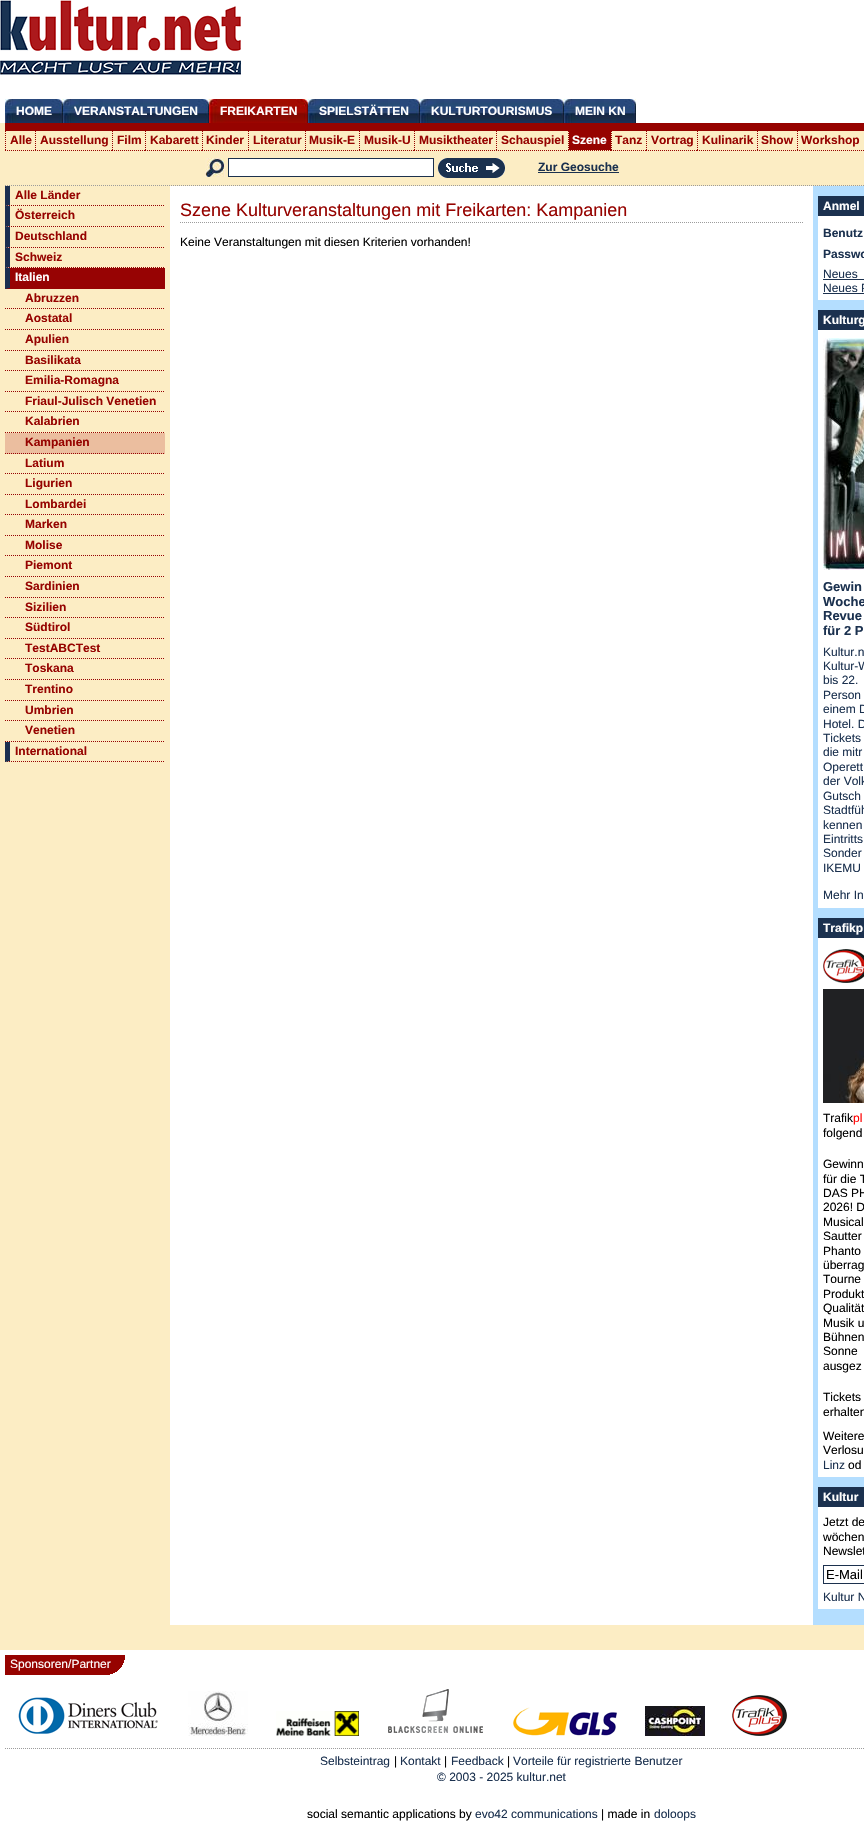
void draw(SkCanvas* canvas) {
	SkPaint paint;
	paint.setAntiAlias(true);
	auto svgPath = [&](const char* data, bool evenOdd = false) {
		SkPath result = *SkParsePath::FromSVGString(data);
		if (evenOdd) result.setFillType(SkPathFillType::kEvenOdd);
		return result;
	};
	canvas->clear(0xffffffff);
	canvas->drawImageRect(SkImages::DeferredFromEncodedData(SkData::MakeFromFileName("img1.png")), SkRect::MakeXYWH(0, 0, 241, 75), SkSamplingOptions());
	canvas->drawImageRect(SkImages::DeferredFromEncodedData(SkData::MakeFromFileName("img2.png")), SkRect::MakeXYWH(5, 99, 38, 24), SkSamplingOptions());
	canvas->drawImageRect(SkImages::DeferredFromEncodedData(SkData::MakeFromFileName("img3.png")), SkRect::MakeXYWH(43, 99, 20, 24), SkSamplingOptions());
	SkFont f1(fontMgr->matchFamilyStyle("Liberation Sans", SkFontStyle::Bold()), 12);
	f1.setSubpixel(true);
	paint.setColor(0xffffffff);
	canvas->drawString("HOME", 16, 115, f1, paint);
	canvas->drawImageRect(SkImages::DeferredFromEncodedData(SkData::MakeFromFileName("img4.png")), SkRect::MakeXYWH(63, 99, 126, 24), SkSamplingOptions());
	canvas->drawImageRect(SkImages::DeferredFromEncodedData(SkData::MakeFromFileName("img3.png")), SkRect::MakeXYWH(189, 99, 20, 24), SkSamplingOptions());
	canvas->drawString("VERANSTALTUNGEN", 74, 115, f1, paint);
	canvas->drawImageRect(SkImages::DeferredFromEncodedData(SkData::MakeFromFileName("img5.png")), SkRect::MakeXYWH(209, 99, 79, 24), SkSamplingOptions());
	canvas->drawImageRect(SkImages::DeferredFromEncodedData(SkData::MakeFromFileName("img6.png")), SkRect::MakeXYWH(288, 99, 20, 24), SkSamplingOptions());
	canvas->drawString("FREIKARTEN", 220, 115, f1, paint);
	canvas->drawImageRect(SkImages::DeferredFromEncodedData(SkData::MakeFromFileName("img7.png")), SkRect::MakeXYWH(308, 99, 92, 24), SkSamplingOptions());
	canvas->drawImageRect(SkImages::DeferredFromEncodedData(SkData::MakeFromFileName("img3.png")), SkRect::MakeXYWH(400, 99, 20, 24), SkSamplingOptions());
	canvas->drawString("SPIELSTÄTTEN", 319, 115, f1, paint);
	canvas->drawImageRect(SkImages::DeferredFromEncodedData(SkData::MakeFromFileName("img8.png")), SkRect::MakeXYWH(420, 99, 124, 24), SkSamplingOptions());
	canvas->drawImageRect(SkImages::DeferredFromEncodedData(SkData::MakeFromFileName("img3.png")), SkRect::MakeXYWH(544, 99, 20, 24), SkSamplingOptions());
	canvas->drawString("KULTURTOURISMUS", 431, 115, f1, paint);
	canvas->drawImageRect(SkImages::DeferredFromEncodedData(SkData::MakeFromFileName("img9.png")), SkRect::MakeXYWH(564, 99, 52, 24), SkSamplingOptions());
	canvas->drawImageRect(SkImages::DeferredFromEncodedData(SkData::MakeFromFileName("img3.png")), SkRect::MakeXYWH(616, 99, 20, 24), SkSamplingOptions());
	canvas->drawString("MEIN KN", 575, 115, f1, paint);
	paint.setColor(0xfffcedc4);
	canvas->drawRect(SkRect::MakeXYWH(0, 123, 864, 63), paint);
	paint.setColor(0xff960300);
	canvas->drawRect(SkRect::MakeXYWH(5, 123, 859, 8), paint);
	paint.setStroke(true);
	paint.setStrokeWidth(1);
	paint.setPathEffect(SkDashPathEffect::Make({{1, 1}}, 0));
	canvas->drawPath(svgPath("M5 150.5H35M5.5 123V151"), paint);
	paint.setPathEffect(nullptr);
	paint.setStroke(false);
	canvas->drawString("Alle", 10, 144, f1, paint);
	paint.setStroke(true);
	paint.setPathEffect(SkDashPathEffect::Make({{1, 1}}, 0));
	canvas->drawPath(svgPath("M35 150.5H112"), paint);
	paint.setPathEffect(nullptr);
	paint.setPathEffect(SkDashPathEffect::Make({{1, 1}}, 0));
	canvas->drawPath(svgPath("M35.5 123V151"), paint);
	paint.setPathEffect(nullptr);
	paint.setStroke(false);
	canvas->drawString("Ausstellung", 40, 144, f1, paint);
	paint.setStroke(true);
	paint.setPathEffect(SkDashPathEffect::Make({{1, 1}}, 0));
	canvas->drawPath(svgPath("M112 150.5H145M112.5 123V151"), paint);
	paint.setPathEffect(nullptr);
	paint.setStroke(false);
	canvas->drawString("Film", 117, 144, f1, paint);
	paint.setStroke(true);
	paint.setPathEffect(SkDashPathEffect::Make({{1, 1}}, 0));
	canvas->drawPath(svgPath("M145 150.5H202M145.5 123V151"), paint);
	paint.setPathEffect(nullptr);
	paint.setStroke(false);
	canvas->drawString("Kabarett", 150, 144, f1, paint);
	paint.setStroke(true);
	paint.setPathEffect(SkDashPathEffect::Make({{1, 1}}, 0));
	canvas->drawPath(svgPath("M202 150.5H248M202.5 123V151"), paint);
	paint.setPathEffect(nullptr);
	paint.setStroke(false);
	canvas->drawString("Kinder", 206, 144, f1, paint);
	paint.setStroke(true);
	paint.setPathEffect(SkDashPathEffect::Make({{1, 1}}, 0));
	canvas->drawPath(svgPath("M248 150.5H305M248.5 123V151"), paint);
	paint.setPathEffect(nullptr);
	paint.setStroke(false);
	canvas->drawString("Literatur", 253, 144, f1, paint);
	paint.setStroke(true);
	paint.setPathEffect(SkDashPathEffect::Make({{1, 1}}, 0));
	canvas->drawPath(svgPath("M305 150.5H359M305.5 123V151"), paint);
	paint.setPathEffect(nullptr);
	paint.setStroke(false);
	canvas->drawString("Musik-E", 309, 144, f1, paint);
	paint.setStroke(true);
	paint.setPathEffect(SkDashPathEffect::Make({{1, 1}}, 0));
	canvas->drawPath(svgPath("M359 150.5H414M359.5 123V151"), paint);
	paint.setPathEffect(nullptr);
	paint.setStroke(false);
	canvas->drawString("Musik-U", 364, 144, f1, paint);
	paint.setStroke(true);
	paint.setPathEffect(SkDashPathEffect::Make({{1, 1}}, 0));
	canvas->drawPath(svgPath("M414 150.5H496"), paint);
	paint.setPathEffect(nullptr);
	paint.setPathEffect(SkDashPathEffect::Make({{1, 1}}, 0));
	canvas->drawPath(svgPath("M414.5 123V151"), paint);
	paint.setPathEffect(nullptr);
	paint.setStroke(false);
	canvas->drawString("Musiktheater", 419, 144, f1, paint);
	paint.setStroke(true);
	paint.setPathEffect(SkDashPathEffect::Make({{1, 1}}, 0));
	canvas->drawPath(svgPath("M496 150.5H568"), paint);
	paint.setPathEffect(nullptr);
	paint.setPathEffect(SkDashPathEffect::Make({{1, 1}}, 0));
	canvas->drawPath(svgPath("M496.5 123V151"), paint);
	paint.setPathEffect(nullptr);
	paint.setStroke(false);
	canvas->drawString("Schauspiel", 501, 144, f1, paint);
	paint.setStroke(true);
	paint.setPathEffect(SkDashPathEffect::Make({{1, 1}}, 0));
	canvas->drawPath(svgPath("M568 150.5H611M568.5 123V151"), paint);
	paint.setPathEffect(nullptr);
	paint.setStroke(false);
	canvas->drawRect(SkRect::MakeXYWH(569, 131, 42, 19), paint);
	paint.setColor(0xffffffff);
	canvas->drawString("Szene", 572, 144, f1, paint);
	paint.setStroke(true);
	paint.setColor(0xff960300);
	paint.setPathEffect(SkDashPathEffect::Make({{1, 1}}, 0));
	canvas->drawPath(svgPath("M611 150.5H646M611.5 123V151"), paint);
	paint.setPathEffect(nullptr);
	paint.setStroke(false);
	canvas->drawString("Tanz", 615, 144, f1, paint);
	paint.setStroke(true);
	paint.setPathEffect(SkDashPathEffect::Make({{1, 1}}, 0));
	canvas->drawPath(svgPath("M646 150.5H697M646.5 123V151"), paint);
	paint.setPathEffect(nullptr);
	paint.setStroke(false);
	canvas->drawString("Vortrag", 651, 144, f1, paint);
	paint.setStroke(true);
	paint.setPathEffect(SkDashPathEffect::Make({{1, 1}}, 0));
	canvas->drawPath(svgPath("M697 150.5H757M697.5 123V151"), paint);
	paint.setPathEffect(nullptr);
	paint.setStroke(false);
	canvas->drawString("Kulinarik", 702, 144, f1, paint);
	paint.setStroke(true);
	paint.setPathEffect(SkDashPathEffect::Make({{1, 1}}, 0));
	canvas->drawPath(svgPath("M757 150.5H797M757.5 123V151"), paint);
	paint.setPathEffect(nullptr);
	paint.setStroke(false);
	canvas->drawString("Show", 761, 144, f1, paint);
	paint.setStroke(true);
	paint.setPathEffect(SkDashPathEffect::Make({{1, 1}}, 0));
	canvas->drawPath(svgPath("M797 150.5H864"), paint);
	paint.setPathEffect(nullptr);
	paint.setPathEffect(SkDashPathEffect::Make({{1, 1}}, 0));
	canvas->drawPath(svgPath("M797.5 123V151"), paint);
	paint.setPathEffect(nullptr);
	paint.setStroke(false);
	canvas->drawString("Workshop", 801, 144, f1, paint);
	paint.setStroke(true);
	paint.setColor(0xff9c9c9c);
	paint.setPathEffect(SkDashPathEffect::Make({{1, 1}}, 0));
	canvas->drawPath(svgPath("M5 185.5H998"), paint);
	paint.setPathEffect(nullptr);
	canvas->drawImageRect(SkImages::DeferredFromEncodedData(SkData::MakeFromFileName("img10.png")), SkRect::MakeXYWH(205, 158, 20, 19), SkSamplingOptions());
	paint.setStroke(false);
	paint.setColor(0xffffffff);
	canvas->drawRect(SkRect::MakeXYWH(228.5, 158.5, 205, 18), paint);
	paint.setStroke(true);
	paint.setColor(0xff1c314e);
	canvas->drawRect(SkRect::MakeXYWH(228.5, 158.5, 205, 18), paint);
	canvas->drawImageRect(SkImages::DeferredFromEncodedData(SkData::MakeFromFileName("img11.png")), SkRect::MakeXYWH(438, 158, 67, 20), SkSamplingOptions());
	paint.setStroke(false);
	paint.setColor(0xff1b314f);
	canvas->drawString("Zur Geosuche", 538, 171, f1, paint);
	canvas->drawRect(SkRect::MakeXYWH(538, 172, 81, 1), paint);
	canvas->drawImageRect(SkImages::DeferredFromEncodedData(SkData::MakeFromFileName("img12.png")), SkRect::MakeXYWH(0, 186, 864, 1423), SkSamplingOptions());
	paint.setStroke(true);
	paint.setColor(0xff970303);
	paint.setPathEffect(SkDashPathEffect::Make({{1, 1}}, 0));
	canvas->drawPath(svgPath("M5 205.5H165"), paint);
	paint.setPathEffect(nullptr);
	paint.setStroke(false);
	paint.setColor(0xff1b2f50);
	canvas->drawPath(svgPath("M5 206V186H10V205Z"), paint);
	paint.setColor(0xff960300);
	canvas->drawString("Alle Länder", 15, 199, f1, paint);
	paint.setStroke(true);
	paint.setColor(0xff970303);
	paint.setPathEffect(SkDashPathEffect::Make({{1, 1}}, 0));
	canvas->drawPath(svgPath("M5 226.5H165"), paint);
	paint.setPathEffect(nullptr);
	paint.setStroke(false);
	paint.setColor(0xff1b2f50);
	canvas->drawPath(svgPath("M5 227V206H10V226Z"), paint);
	paint.setColor(0xff960300);
	canvas->drawString("Österreich", 15, 219, f1, paint);
	paint.setStroke(true);
	paint.setColor(0xff970303);
	paint.setPathEffect(SkDashPathEffect::Make({{1, 1}}, 0));
	canvas->drawPath(svgPath("M5 247.5H165"), paint);
	paint.setPathEffect(nullptr);
	paint.setStroke(false);
	paint.setColor(0xff1b2f50);
	canvas->drawPath(svgPath("M5 248V227H10V247Z"), paint);
	paint.setColor(0xff960300);
	canvas->drawString("Deutschland", 15, 240, f1, paint);
	paint.setStroke(true);
	paint.setColor(0xff970303);
	paint.setPathEffect(SkDashPathEffect::Make({{1, 1}}, 0));
	canvas->drawPath(svgPath("M5 267.5H165"), paint);
	paint.setPathEffect(nullptr);
	paint.setStroke(false);
	paint.setColor(0xff1b2f50);
	canvas->drawPath(svgPath("M5 268V248H10V267Z"), paint);
	paint.setColor(0xff960300);
	canvas->drawString("Schweiz", 15, 261, f1, paint);
	paint.setColor(0xff970303);
	canvas->drawRect(SkRect::MakeXYWH(5, 268, 160, 21), paint);
	paint.setColor(0xff1b2f50);
	canvas->drawPath(svgPath("M5 289V268H10V288Z"), paint);
	paint.setColor(0xffffffff);
	canvas->drawString("Italien", 15, 281, f1, paint);
	paint.setStroke(true);
	paint.setColor(0xff970303);
	paint.setPathEffect(SkDashPathEffect::Make({{1, 1}}, 0));
	canvas->drawPath(svgPath("M5 308.5H165"), paint);
	paint.setPathEffect(nullptr);
	paint.setStroke(false);
	paint.setColor(0xff960300);
	canvas->drawString("Abruzzen", 25, 302, f1, paint);
	paint.setStroke(true);
	paint.setColor(0xff970303);
	paint.setPathEffect(SkDashPathEffect::Make({{1, 1}}, 0));
	canvas->drawPath(svgPath("M5 329.5H165"), paint);
	paint.setPathEffect(nullptr);
	paint.setStroke(false);
	paint.setColor(0xff960300);
	canvas->drawString("Aostatal", 25, 322, f1, paint);
	paint.setStroke(true);
	paint.setColor(0xff970303);
	paint.setPathEffect(SkDashPathEffect::Make({{1, 1}}, 0));
	canvas->drawPath(svgPath("M5 350.5H165"), paint);
	paint.setPathEffect(nullptr);
	paint.setStroke(false);
	paint.setColor(0xff960300);
	canvas->drawString("Apulien", 25, 343, f1, paint);
	paint.setStroke(true);
	paint.setColor(0xff970303);
	paint.setPathEffect(SkDashPathEffect::Make({{1, 1}}, 0));
	canvas->drawPath(svgPath("M5 370.5H165"), paint);
	paint.setPathEffect(nullptr);
	paint.setStroke(false);
	paint.setColor(0xff960300);
	canvas->drawString("Basilikata", 25, 364, f1, paint);
	paint.setStroke(true);
	paint.setColor(0xff970303);
	paint.setPathEffect(SkDashPathEffect::Make({{1, 1}}, 0));
	canvas->drawPath(svgPath("M5 391.5H165"), paint);
	paint.setPathEffect(nullptr);
	paint.setStroke(false);
	paint.setColor(0xff960300);
	canvas->drawString("Emilia-Romagna", 25, 384, f1, paint);
	paint.setStroke(true);
	paint.setColor(0xff970303);
	paint.setPathEffect(SkDashPathEffect::Make({{1, 1}}, 0));
	canvas->drawPath(svgPath("M5 411.5H165"), paint);
	paint.setPathEffect(nullptr);
	paint.setStroke(false);
	paint.setColor(0xff960300);
	canvas->drawString("Friaul-Julisch Venetien", 25, 405, f1, paint);
	paint.setStroke(true);
	paint.setColor(0xff970303);
	paint.setPathEffect(SkDashPathEffect::Make({{1, 1}}, 0));
	canvas->drawPath(svgPath("M5 432.5H165"), paint);
	paint.setPathEffect(nullptr);
	paint.setStroke(false);
	paint.setColor(0xff960300);
	canvas->drawString("Kalabrien", 25, 425, f1, paint);
	paint.setColor(0xffebbe9f);
	canvas->drawRect(SkRect::MakeXYWH(5, 433, 160, 21), paint);
	paint.setStroke(true);
	paint.setColor(0xff970303);
	paint.setPathEffect(SkDashPathEffect::Make({{1, 1}}, 0));
	canvas->drawPath(svgPath("M5 453.5H165"), paint);
	paint.setPathEffect(nullptr);
	paint.setStroke(false);
	paint.setColor(0xff960300);
	canvas->drawString("Kampanien", 25, 446, f1, paint);
	paint.setStroke(true);
	paint.setColor(0xff970303);
	paint.setPathEffect(SkDashPathEffect::Make({{1, 1}}, 0));
	canvas->drawPath(svgPath("M5 473.5H165"), paint);
	paint.setPathEffect(nullptr);
	paint.setStroke(false);
	paint.setColor(0xff960300);
	canvas->drawString("Latium", 25, 467, f1, paint);
	paint.setStroke(true);
	paint.setColor(0xff970303);
	paint.setPathEffect(SkDashPathEffect::Make({{1, 1}}, 0));
	canvas->drawPath(svgPath("M5 494.5H165"), paint);
	paint.setPathEffect(nullptr);
	paint.setStroke(false);
	paint.setColor(0xff960300);
	canvas->drawString("Ligurien", 25, 487, f1, paint);
	paint.setStroke(true);
	paint.setColor(0xff970303);
	paint.setPathEffect(SkDashPathEffect::Make({{1, 1}}, 0));
	canvas->drawPath(svgPath("M5 514.5H165"), paint);
	paint.setPathEffect(nullptr);
	paint.setStroke(false);
	paint.setColor(0xff960300);
	canvas->drawString("Lombardei", 25, 508, f1, paint);
	paint.setStroke(true);
	paint.setColor(0xff970303);
	paint.setPathEffect(SkDashPathEffect::Make({{1, 1}}, 0));
	canvas->drawPath(svgPath("M5 535.5H165"), paint);
	paint.setPathEffect(nullptr);
	paint.setStroke(false);
	paint.setColor(0xff960300);
	canvas->drawString("Marken", 25, 528, f1, paint);
	paint.setStroke(true);
	paint.setColor(0xff970303);
	paint.setPathEffect(SkDashPathEffect::Make({{1, 1}}, 0));
	canvas->drawPath(svgPath("M5 555.5H165"), paint);
	paint.setPathEffect(nullptr);
	paint.setStroke(false);
	paint.setColor(0xff960300);
	canvas->drawString("Molise", 25, 549, f1, paint);
	paint.setStroke(true);
	paint.setColor(0xff970303);
	paint.setPathEffect(SkDashPathEffect::Make({{1, 1}}, 0));
	canvas->drawPath(svgPath("M5 576.5H165"), paint);
	paint.setPathEffect(nullptr);
	paint.setStroke(false);
	paint.setColor(0xff960300);
	canvas->drawString("Piemont", 25, 569, f1, paint);
	paint.setStroke(true);
	paint.setColor(0xff970303);
	paint.setPathEffect(SkDashPathEffect::Make({{1, 1}}, 0));
	canvas->drawPath(svgPath("M5 597.5H165"), paint);
	paint.setPathEffect(nullptr);
	paint.setStroke(false);
	paint.setColor(0xff960300);
	canvas->drawString("Sardinien", 25, 590, f1, paint);
	paint.setStroke(true);
	paint.setColor(0xff970303);
	paint.setPathEffect(SkDashPathEffect::Make({{1, 1}}, 0));
	canvas->drawPath(svgPath("M5 617.5H165"), paint);
	paint.setPathEffect(nullptr);
	paint.setStroke(false);
	paint.setColor(0xff960300);
	canvas->drawString("Sizilien", 25, 611, f1, paint);
	paint.setStroke(true);
	paint.setColor(0xff970303);
	paint.setPathEffect(SkDashPathEffect::Make({{1, 1}}, 0));
	canvas->drawPath(svgPath("M5 638.5H165"), paint);
	paint.setPathEffect(nullptr);
	paint.setStroke(false);
	paint.setColor(0xff960300);
	canvas->drawString("Südtirol", 25, 631, f1, paint);
	paint.setStroke(true);
	paint.setColor(0xff970303);
	paint.setPathEffect(SkDashPathEffect::Make({{1, 1}}, 0));
	canvas->drawPath(svgPath("M5 658.5H165"), paint);
	paint.setPathEffect(nullptr);
	paint.setStroke(false);
	paint.setColor(0xff960300);
	canvas->drawString("TestABCTest", 25, 652, f1, paint);
	paint.setStroke(true);
	paint.setColor(0xff970303);
	paint.setPathEffect(SkDashPathEffect::Make({{1, 1}}, 0));
	canvas->drawPath(svgPath("M5 679.5H165"), paint);
	paint.setPathEffect(nullptr);
	paint.setStroke(false);
	paint.setColor(0xff960300);
	canvas->drawString("Toskana", 25, 672, f1, paint);
	paint.setStroke(true);
	paint.setColor(0xff970303);
	paint.setPathEffect(SkDashPathEffect::Make({{1, 1}}, 0));
	canvas->drawPath(svgPath("M5 700.5H165"), paint);
	paint.setPathEffect(nullptr);
	paint.setStroke(false);
	paint.setColor(0xff960300);
	canvas->drawString("Trentino", 25, 693, f1, paint);
	paint.setStroke(true);
	paint.setColor(0xff970303);
	paint.setPathEffect(SkDashPathEffect::Make({{1, 1}}, 0));
	canvas->drawPath(svgPath("M5 720.5H165"), paint);
	paint.setPathEffect(nullptr);
	paint.setStroke(false);
	paint.setColor(0xff960300);
	canvas->drawString("Umbrien", 25, 714, f1, paint);
	paint.setStroke(true);
	paint.setColor(0xff970303);
	paint.setPathEffect(SkDashPathEffect::Make({{1, 1}}, 0));
	canvas->drawPath(svgPath("M5 741.5H165"), paint);
	paint.setPathEffect(nullptr);
	paint.setStroke(false);
	paint.setColor(0xff960300);
	canvas->drawString("Venetien", 25, 734, f1, paint);
	paint.setStroke(true);
	paint.setColor(0xff970303);
	paint.setPathEffect(SkDashPathEffect::Make({{1, 1}}, 0));
	canvas->drawPath(svgPath("M5 761.5H165"), paint);
	paint.setPathEffect(nullptr);
	paint.setStroke(false);
	paint.setColor(0xff1b2f50);
	canvas->drawPath(svgPath("M5 762V742H10V761Z"), paint);
	paint.setColor(0xff960300);
	canvas->drawString("International", 15, 755, f1, paint);
	paint.setStroke(true);
	paint.setColor(0xff9c9c9c);
	paint.setPathEffect(SkDashPathEffect::Make({{1, 1}}, 0));
	canvas->drawPath(svgPath("M180 222.5H803"), paint);
	paint.setPathEffect(nullptr);
	SkFont f2(fontMgr->matchFamilyStyle("Liberation Sans", SkFontStyle::Normal()), 18);
	f2.setSubpixel(true);
	paint.setStroke(false);
	paint.setColor(0xff960300);
	canvas->drawString("Szene Kulturveranstaltungen mit Freikarten: Kampanien", 180, 216, f2, paint);
	SkFont f3(fontMgr->matchFamilyStyle("Liberation Sans", SkFontStyle::Normal()), 12);
	f3.setSubpixel(true);
	paint.setColor(0xff000000);
	canvas->drawString("Keine Veranstaltungen mit diesen Kriterien vorhanden!", 180, 246, f3, paint);
	paint.setColor(0xffffffff);
	canvas->drawRect(SkRect::MakeXYWH(818, 216, 46, 84), paint);
	paint.setColor(0xff1b314f);
	canvas->drawRect(SkRect::MakeXYWH(818, 196, 46, 20), paint);
	paint.setColor(0xffffffff);
	canvas->drawString("Anmel", 823, 210, f1, paint);
	paint.setColor(0xff1b314f);
	canvas->drawString("Benutz", 823, 237, f1, paint);
	canvas->drawString("Passwo", 823, 258, f1, paint);
	canvas->drawString("Neues", 823, 278, f3, paint);
	paint.setColor(0xff1c314e);
	canvas->drawRect(SkRect::MakeXYWH(823, 279, 41, 1), paint);
	paint.setColor(0xff1b314f);
	canvas->drawString("Neues P", 823, 292, f3, paint);
	paint.setColor(0xff1c314e);
	canvas->drawRect(SkRect::MakeXYWH(823, 293, 41, 1), paint);
	paint.setColor(0xffffffff);
	canvas->drawRect(SkRect::MakeXYWH(818, 330, 46, 578), paint);
	paint.setColor(0xff1b314f);
	canvas->drawRect(SkRect::MakeXYWH(818, 310, 46, 20), paint);
	paint.setColor(0xffffffff);
	canvas->drawString("Kulturg", 823, 324, f1, paint);
	canvas->drawImageRect(SkImages::DeferredFromEncodedData(SkData::MakeFromFileName("img13.png")), SkRect::MakeXYWH(823, 338, 41, 232), SkSamplingOptions());
	SkFont f4(fontMgr->matchFamilyStyle("Liberation Sans", SkFontStyle::Bold()), 13);
	f4.setSubpixel(true);
	paint.setColor(0xff1b314f);
	canvas->drawString("Gewin", 823, 591, f4, paint);
	canvas->drawString("Woche", 823, 606, f4, paint);
	canvas->drawString("Revue", 823, 620, f4, paint);
	canvas->drawString("für 2 P", 823, 635, f4, paint);
	canvas->drawString("Kultur.n", 823, 656, f3, paint);
	canvas->drawString("Kultur-W", 823, 670, f3, paint);
	canvas->drawString("bis 22.", 823, 684, f3, paint);
	canvas->drawString("Person", 823, 699, f3, paint);
	canvas->drawString("einem D", 823, 713, f3, paint);
	canvas->drawString("Hotel. D", 823, 728, f3, paint);
	canvas->drawString("Tickets", 823, 742, f3, paint);
	canvas->drawString("die mitr", 823, 756, f3, paint);
	canvas->drawString("Operett", 823, 771, f3, paint);
	canvas->drawString("der Volk", 823, 785, f3, paint);
	canvas->drawString("Gutsch", 823, 800, f3, paint);
	canvas->drawString("Stadtfüh", 823, 814, f3, paint);
	canvas->drawString("kennen", 823, 829, f3, paint);
	canvas->drawString("Eintritts", 823, 843, f3, paint);
	canvas->drawString("Sonder", 823, 857, f3, paint);
	canvas->drawString("IKEMU", 823, 872, f3, paint);
	canvas->drawString("Mehr In", 823, 899, f3, paint);
	paint.setColor(0xffffffff);
	canvas->drawRect(SkRect::MakeXYWH(818, 938, 46, 539), paint);
	paint.setColor(0xff1b314f);
	canvas->drawRect(SkRect::MakeXYWH(818, 918, 46, 20), paint);
	paint.setColor(0xffffffff);
	canvas->drawString("Trafikp", 823, 932, f1, paint);
	canvas->drawImageRect(SkImages::DeferredFromEncodedData(SkData::MakeFromFileName("img14.png")), SkRect::MakeXYWH(823, 949, 41, 34), SkSamplingOptions());
	canvas->drawImageRect(SkImages::DeferredFromEncodedData(SkData::MakeFromFileName("img15.png")), SkRect::MakeXYWH(823, 989, 41, 114), SkSamplingOptions());
	paint.setColor(0xff000000);
	canvas->drawString("Trafik", 823, 1122, f3, paint);
	paint.setColor(0xffff0000);
	canvas->drawString("pl", 853, 1122, f3, paint);
	paint.setColor(0xff000000);
	canvas->drawString("folgend", 823, 1137, f3, paint);
	canvas->drawString("Gewinn", 823, 1168, f3, paint);
	canvas->drawString("für die T", 823, 1183, f3, paint);
	canvas->drawString("DAS PH", 823, 1197, f3, paint);
	canvas->drawString("2026! D", 823, 1211, f3, paint);
	canvas->drawString("Musical", 823, 1226, f3, paint);
	canvas->drawString("Sautter", 823, 1240, f3, paint);
	canvas->drawString("Phanto", 823, 1255, f3, paint);
	canvas->drawString("überrag", 823, 1269, f3, paint);
	canvas->drawString("Tourne", 823, 1283, f3, paint);
	canvas->drawString("Produkt", 823, 1298, f3, paint);
	canvas->drawString("Qualität", 823, 1312, f3, paint);
	canvas->drawString("Musik u", 823, 1327, f3, paint);
	canvas->drawString("Bühnen", 823, 1341, f3, paint);
	canvas->drawString("Sonne", 823, 1355, f3, paint);
	canvas->drawString("ausgez", 823, 1370, f3, paint);
	canvas->drawString("Tickets", 823, 1401, f3, paint);
	canvas->drawString("erhalten", 823, 1416, f3, paint);
	canvas->drawString("Weitere", 823, 1440, f3, paint);
	canvas->drawString("Verlosu", 823, 1454, f3, paint);
	paint.setColor(0xff1b314f);
	canvas->drawString("Linz", 823, 1469, f3, paint);
	paint.setColor(0xff000000);
	canvas->drawString("od", 848, 1469, f3, paint);
	paint.setColor(0xffffffff);
	canvas->drawRect(SkRect::MakeXYWH(818, 1507, 46, 102), paint);
	paint.setColor(0xff1b314f);
	canvas->drawRect(SkRect::MakeXYWH(818, 1487, 46, 20), paint);
	paint.setColor(0xffffffff);
	canvas->drawString("Kultur", 823, 1501, f1, paint);
	paint.setColor(0xff000000);
	canvas->drawString("Jetzt de", 823, 1526, f3, paint);
	canvas->drawString("wöchen", 823, 1541, f3, paint);
	canvas->drawString("Newslet", 823, 1555, f3, paint);
	paint.setStroke(true);
	paint.setColor(0xff1c314e);
	canvas->drawRect(SkRect::MakeXYWH(823.5, 1565.5, 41, 18), paint);
	SkFont f5(fontMgr->matchFamilyStyle("Liberation Sans", SkFontStyle::Normal()), 13);
	f5.setSubpixel(true);
	paint.setStroke(false);
	paint.setColor(0xff000000);
	canvas->drawString("E-Mail", 826, 1579, f5, paint);
	paint.setColor(0xff1b314f);
	canvas->drawString("Kultur N", 823, 1601, f3, paint);
	canvas->drawImageRect(SkImages::DeferredFromEncodedData(SkData::MakeFromFileName("img16.png")), SkRect::MakeXYWH(0, 1609, 864, 16), SkSamplingOptions());
	paint.setColor(0xfffcedc4);
	canvas->drawRect(SkRect::MakeXYWH(0, 1625, 864, 25), paint);
	canvas->drawImageRect(SkImages::DeferredFromEncodedData(SkData::MakeFromFileName("img17.png")), SkRect::MakeXYWH(5, 1655, 120, 20), SkSamplingOptions());
	paint.setColor(0xffffffff);
	canvas->drawString("Sponsoren/Partner", 10, 1668, f3, paint);
	canvas->drawImageRect(SkImages::DeferredFromEncodedData(SkData::MakeFromFileName("img18.png")), SkRect::MakeXYWH(18, 1697, 140, 37), SkSamplingOptions());
	canvas->drawImageRect(SkImages::DeferredFromEncodedData(SkData::MakeFromFileName("img19.png")), SkRect::MakeXYWH(188, 1691, 60, 45), SkSamplingOptions());
	canvas->drawImageRect(SkImages::DeferredFromEncodedData(SkData::MakeFromFileName("img20.png")), SkRect::MakeXYWH(276, 1711, 83, 25), SkSamplingOptions());
	canvas->drawImageRect(SkImages::DeferredFromEncodedData(SkData::MakeFromFileName("img21.png")), SkRect::MakeXYWH(388, 1689, 95, 44), SkSamplingOptions());
	canvas->drawImageRect(SkImages::DeferredFromEncodedData(SkData::MakeFromFileName("img22.png")), SkRect::MakeXYWH(513, 1707, 104, 29), SkSamplingOptions());
	canvas->drawImageRect(SkImages::DeferredFromEncodedData(SkData::MakeFromFileName("img23.png")), SkRect::MakeXYWH(645, 1706, 60, 30), SkSamplingOptions());
	canvas->drawImageRect(SkImages::DeferredFromEncodedData(SkData::MakeFromFileName("img24.png")), SkRect::MakeXYWH(732, 1695, 55, 41), SkSamplingOptions());
	paint.setStroke(true);
	paint.setColor(0xff9c9c9c);
	paint.setPathEffect(SkDashPathEffect::Make({{1, 1}}, 0));
	canvas->drawPath(svgPath("M5 1748.5H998"), paint);
	paint.setPathEffect(nullptr);
	paint.setStroke(false);
	paint.setColor(0xff1b314f);
	canvas->drawString("Selbsteintrag", 320, 1765, f3, paint);
	paint.setColor(0xff000000);
	canvas->drawString("|", 394, 1765, f3, paint);
	paint.setColor(0xff1b314f);
	canvas->drawString("Kontakt", 400, 1765, f3, paint);
	paint.setColor(0xff000000);
	canvas->drawString("|", 444, 1765, f3, paint);
	paint.setColor(0xff1b314f);
	canvas->drawString("Feedback", 451, 1765, f3, paint);
	paint.setColor(0xff000000);
	canvas->drawString("|", 507, 1765, f3, paint);
	paint.setColor(0xff1b314f);
	canvas->drawString("Vorteile für registrierte Benutzer", 513, 1765, f3, paint);
	canvas->drawString("© 2003 - 2025 kultur.net", 437, 1781, f3, paint);
	paint.setColor(0xff000000);
	canvas->drawString("social semantic applications by", 307, 1818, f3, paint);
	paint.setColor(0xff1b314f);
	canvas->drawString("evo42 communications", 475, 1818, f3, paint);
	paint.setColor(0xff000000);
	canvas->drawString("| made in", 601, 1818, f3, paint);
	paint.setColor(0xff1b314f);
	canvas->drawString("doloops", 654, 1818, f3, paint);
}
